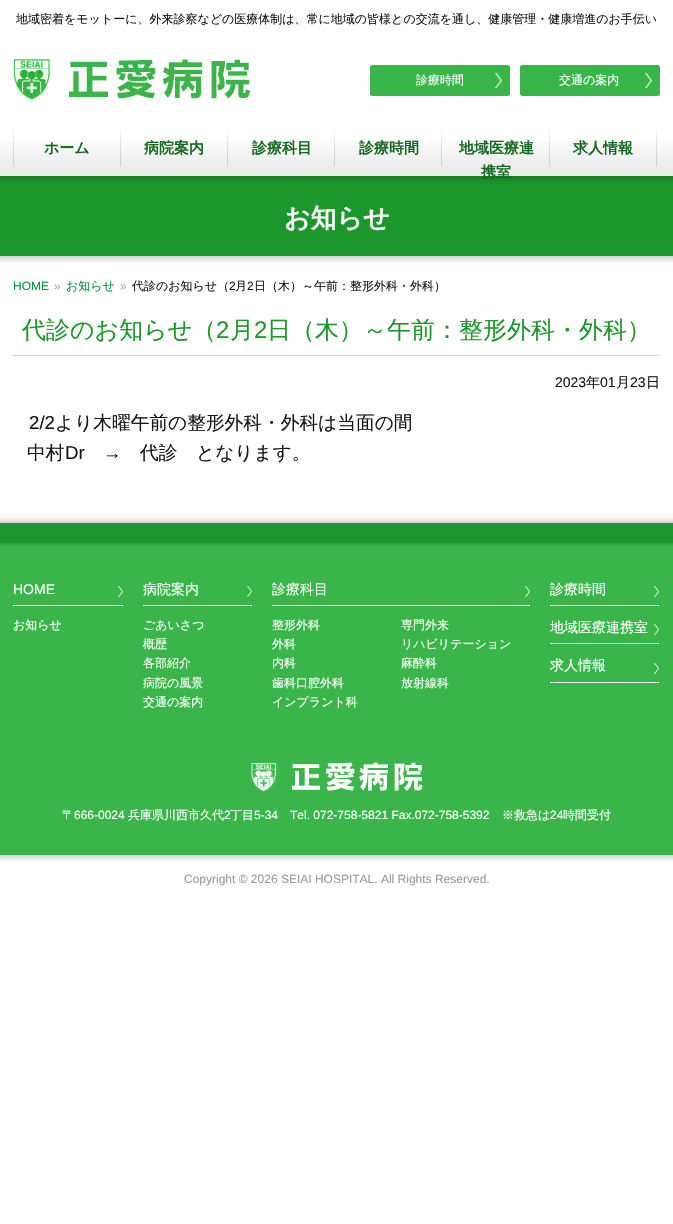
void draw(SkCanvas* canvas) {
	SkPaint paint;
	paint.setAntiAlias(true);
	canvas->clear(0xffffffff);
	SkFont f1(fontMgr->matchFamilyStyle("WenQuanYi Zen Hei", SkFontStyle(500, SkFontStyle::kNormal_Width, SkFontStyle::kUpright_Slant)), 12);
	f1.setSubpixel(true);
	paint.setColor(0xff151515);
	canvas->drawString("地域密着をモットーに、外来診察などの医療体制は、常に地域の皆様との交流を通し、健康管理・健康増進のお手伝い", 16, 23, f1, paint);
	canvas->drawImageRect(SkImages::DeferredFromEncodedData(SkData::MakeFromFileName("img1.png")), SkRect::MakeXYWH(13, 59, 237, 41), SkSamplingOptions());
	paint.setColor(0xff39b54a);
	canvas->drawRoundRect(SkRect::MakeXYWH(370, 65, 140, 31), 3, 3, paint);
	canvas->drawImageRect(SkImages::DeferredFromEncodedData(SkData::MakeFromFileName("img2.png")), SkRect::MakeXYWH(495, 73, 7, 15), SkSamplingOptions());
	paint.setStroke(true);
	paint.setStrokeWidth(1);
	canvas->drawRoundRect(SkRect::MakeXYWH(370.5, 65.5, 139, 30), 2.5, 2.5, paint);
	paint.setStroke(false);
	paint.setColor(0xffffffff);
	canvas->drawString("診療時間", 416, 84, f1, paint);
	paint.setColor(0xff39b54a);
	canvas->drawRoundRect(SkRect::MakeXYWH(520, 65, 140, 31), 3, 3, paint);
	canvas->drawImageRect(SkImages::DeferredFromEncodedData(SkData::MakeFromFileName("img2.png")), SkRect::MakeXYWH(645, 73, 7, 15), SkSamplingOptions());
	paint.setStroke(true);
	canvas->drawRoundRect(SkRect::MakeXYWH(520.5, 65.5, 139, 30), 2.5, 2.5, paint);
	paint.setStroke(false);
	paint.setColor(0xffffffff);
	canvas->drawString("交通の案内", 559, 84, f1, paint);
	canvas->drawImageRect(SkImages::DeferredFromEncodedData(SkData::MakeFromFileName("img3.png")), SkRect::MakeXYWH(0, 141, 673, 35), SkSamplingOptions());
	canvas->drawImageRect(SkImages::DeferredFromEncodedData(SkData::MakeFromFileName("img4.png")), SkRect::MakeXYWH(13, 127, 1, 39), SkSamplingOptions());
	canvas->drawImageRect(SkImages::DeferredFromEncodedData(SkData::MakeFromFileName("img4.png")), SkRect::MakeXYWH(120, 127, 1, 39), SkSamplingOptions());
	SkFont f2(fontMgr->matchFamilyStyle("WenQuanYi Zen Hei", SkFontStyle::Bold()), 15);
	f2.setSubpixel(true);
	paint.setColor(0xff12681d);
	canvas->drawString("ホーム", 44, 153, f2, paint);
	canvas->drawImageRect(SkImages::DeferredFromEncodedData(SkData::MakeFromFileName("img4.png")), SkRect::MakeXYWH(227, 127, 1, 39), SkSamplingOptions());
	canvas->drawString("病院案内", 144, 153, f2, paint);
	canvas->drawImageRect(SkImages::DeferredFromEncodedData(SkData::MakeFromFileName("img4.png")), SkRect::MakeXYWH(334, 127, 1, 39), SkSamplingOptions());
	canvas->drawString("診療科目", 252, 153, f2, paint);
	canvas->drawImageRect(SkImages::DeferredFromEncodedData(SkData::MakeFromFileName("img4.png")), SkRect::MakeXYWH(441, 127, 1, 39), SkSamplingOptions());
	canvas->drawString("診療時間", 359, 153, f2, paint);
	canvas->drawImageRect(SkImages::DeferredFromEncodedData(SkData::MakeFromFileName("img4.png")), SkRect::MakeXYWH(549, 127, 1, 39), SkSamplingOptions());
	canvas->drawString("地域医療連", 459, 153, f2, paint);
	canvas->drawImageRect(SkImages::DeferredFromEncodedData(SkData::MakeFromFileName("img5.png")), SkRect::MakeXYWH(0, 176, 673, 87), SkSamplingOptions());
	canvas->drawString("携室", 481, 177, f2, paint);
	canvas->drawImageRect(SkImages::DeferredFromEncodedData(SkData::MakeFromFileName("img4.png")), SkRect::MakeXYWH(656, 127, 1, 39), SkSamplingOptions());
	canvas->drawString("求人情報", 573, 153, f2, paint);
	SkFont f3(fontMgr->matchFamilyStyle("WenQuanYi Zen Hei", SkFontStyle::Bold()), 26);
	f3.setSubpixel(true);
	paint.setColor(0xffffffff);
	canvas->drawString("お知らせ", 284, 227, f3, paint);
	SkFont f4(fontMgr->matchFamilyStyle("Liberation Sans", SkFontStyle::Normal()), 12);
	f4.setSubpixel(true);
	paint.setColor(0xff00963c);
	canvas->drawString("HOME", 13, 290, f4, paint);
	paint.setColor(0xffaaaaaa);
	canvas->drawString("»", 54, 290, f4, paint);
	paint.setColor(0xff00963c);
	canvas->drawString("お知らせ", 66, 290, f1, paint);
	paint.setColor(0xffaaaaaa);
	canvas->drawString("»", 120, 290, f4, paint);
	paint.setColor(0xff151515);
	canvas->drawString("代診のお知らせ（", 132, 290, f1, paint);
	canvas->drawString("2", 229, 290, f4, paint);
	canvas->drawString("月", 235, 290, f1, paint);
	canvas->drawString("2", 247, 290, f4, paint);
	canvas->drawString("日（木）～午前：整形外科・外科）", 254, 290, f1, paint);
	paint.setColor(0xffdddddd);
	canvas->drawRect(SkRect::MakeXYWH(13, 355, 647, 1), paint);
	SkFont f5(fontMgr->matchFamilyStyle("WenQuanYi Zen Hei", SkFontStyle(500, SkFontStyle::kNormal_Width, SkFontStyle::kUpright_Slant)), 24);
	f5.setSubpixel(true);
	paint.setColor(0xff1b972c);
	canvas->drawString("代診のお知らせ（", 22, 338, f5, paint);
	SkFont f6(fontMgr->matchFamilyStyle("Liberation Sans", SkFontStyle::Normal()), 24);
	f6.setSubpixel(true);
	canvas->drawString("2", 216, 338, f6, paint);
	canvas->drawString("月", 230, 338, f5, paint);
	canvas->drawString("2", 254, 338, f6, paint);
	canvas->drawString("日（木）～午前：整形外科・外科）", 267, 338, f5, paint);
	SkFont f7(fontMgr->matchFamilyStyle("Liberation Sans", SkFontStyle::Normal()), 14);
	f7.setSubpixel(true);
	paint.setColor(0xff151515);
	canvas->drawString("2023", 555, 387, f7, paint);
	SkFont f8(fontMgr->matchFamilyStyle("WenQuanYi Zen Hei", SkFontStyle(500, SkFontStyle::kNormal_Width, SkFontStyle::kUpright_Slant)), 14);
	f8.setSubpixel(true);
	canvas->drawString("年", 586, 387, f8, paint);
	canvas->drawString("01", 600, 387, f7, paint);
	canvas->drawString("月", 616, 387, f8, paint);
	canvas->drawString("23", 630, 387, f7, paint);
	canvas->drawString("日", 646, 387, f8, paint);
	SkFont f9(fontMgr->matchFamilyStyle("Liberation Sans", SkFontStyle::Normal()), 18.7);
	f9.setSubpixel(true);
	canvas->drawString("2/2", 29, 429, f9, paint);
	SkFont f10(fontMgr->matchFamilyStyle("WenQuanYi Zen Hei", SkFontStyle(500, SkFontStyle::kNormal_Width, SkFontStyle::kUpright_Slant)), 18.7);
	f10.setSubpixel(true);
	canvas->drawString("より木曜午前の整形外科・外科は当面の間", 55, 429, f10, paint);
	canvas->drawString("中村", 27, 459, f10, paint);
	canvas->drawString("Dr", 65, 459, f9, paint);
	canvas->drawString("→", 103, 459, f9, paint);
	canvas->drawString("代診　となります。", 140, 459, f10, paint);
	paint.setColor(0xff39b54a);
	canvas->drawRect(SkRect::MakeXYWH(0, 546, 673, 309), paint);
	canvas->drawImageRect(SkImages::DeferredFromEncodedData(SkData::MakeFromFileName("img6.png")), SkRect::MakeXYWH(0, 513, 673, 33), SkSamplingOptions());
	canvas->drawImageRect(SkImages::DeferredFromEncodedData(SkData::MakeFromFileName("img7.png")), SkRect::MakeXYWH(118, 586, 5, 11), SkSamplingOptions());
	paint.setColor(0xffffffff);
	canvas->drawRect(SkRect::MakeXYWH(13, 605, 110, 1), paint);
	canvas->drawString("HOME", 13, 594, f7, paint);
	canvas->drawString("お知らせ", 13, 629, f1, paint);
	canvas->drawImageRect(SkImages::DeferredFromEncodedData(SkData::MakeFromFileName("img8.png")), SkRect::MakeXYWH(247, 586, 5, 11), SkSamplingOptions());
	canvas->drawRect(SkRect::MakeXYWH(143, 605, 109, 1), paint);
	canvas->drawString("病院案内", 143, 594, f8, paint);
	canvas->drawString("ごあいさつ", 143, 629, f1, paint);
	canvas->drawString("概歴", 143, 648, f1, paint);
	canvas->drawString("各部紹介", 143, 667, f1, paint);
	canvas->drawString("病院の風景", 143, 687, f1, paint);
	canvas->drawString("交通の案内", 143, 706, f1, paint);
	canvas->drawImageRect(SkImages::DeferredFromEncodedData(SkData::MakeFromFileName("img8.png")), SkRect::MakeXYWH(525, 586, 5, 11), SkSamplingOptions());
	canvas->drawRect(SkRect::MakeXYWH(272, 605, 258, 1), paint);
	canvas->drawString("診療科目", 272, 594, f8, paint);
	canvas->drawString("整形外科", 272, 629, f1, paint);
	canvas->drawString("専門外来", 401, 629, f1, paint);
	canvas->drawString("外科", 272, 648, f1, paint);
	canvas->drawString("リハビリテーション", 401, 648, f1, paint);
	canvas->drawString("内科", 272, 667, f1, paint);
	canvas->drawString("麻酔科", 401, 667, f1, paint);
	canvas->drawString("歯科口腔外科", 272, 687, f1, paint);
	canvas->drawString("インプラント科", 272, 706, f1, paint);
	canvas->drawString("放射線科", 401, 687, f1, paint);
	canvas->drawImageRect(SkImages::DeferredFromEncodedData(SkData::MakeFromFileName("img7.png")), SkRect::MakeXYWH(654, 586, 5, 11), SkSamplingOptions());
	canvas->drawRect(SkRect::MakeXYWH(550, 605, 109, 1), paint);
	canvas->drawString("診療時間", 550, 594, f8, paint);
	canvas->drawImageRect(SkImages::DeferredFromEncodedData(SkData::MakeFromFileName("img7.png")), SkRect::MakeXYWH(654, 624, 5, 11), SkSamplingOptions());
	canvas->drawRect(SkRect::MakeXYWH(550, 643, 109, 1), paint);
	canvas->drawString("地域医療連携室", 550, 632, f8, paint);
	canvas->drawImageRect(SkImages::DeferredFromEncodedData(SkData::MakeFromFileName("img7.png")), SkRect::MakeXYWH(654, 663, 5, 11), SkSamplingOptions());
	canvas->drawRect(SkRect::MakeXYWH(550, 682, 109, 1), paint);
	canvas->drawString("求人情報", 550, 670, f8, paint);
	canvas->drawImageRect(SkImages::DeferredFromEncodedData(SkData::MakeFromFileName("img9.png")), SkRect::MakeXYWH(251, 762, 172, 29), SkSamplingOptions());
	canvas->drawString("〒", 62, 819, f1, paint);
	canvas->drawString("666-0024", 74, 819, f4, paint);
	canvas->drawString("兵庫県川西市久代", 128, 819, f1, paint);
	canvas->drawString("2", 224, 819, f4, paint);
	canvas->drawString("丁目", 230, 819, f1, paint);
	canvas->drawString("5-34", 254, 819, f4, paint);
	canvas->drawString("Tel. 072-758-5821 Fax.072-758-5392", 290, 819, f4, paint);
	canvas->drawString("※救急は", 502, 819, f1, paint);
	canvas->drawString("24", 550, 819, f4, paint);
	canvas->drawString("時間受付", 563, 819, f1, paint);
	canvas->drawImageRect(SkImages::DeferredFromEncodedData(SkData::MakeFromFileName("img10.png")), SkRect::MakeXYWH(0, 855, 673, 7), SkSamplingOptions());
	paint.setColor(0xff999999);
	canvas->drawString("Copyright © 2026 SEIAI HOSPITAL. All Rights Reserved.", 184, 883, f4, paint);
}
